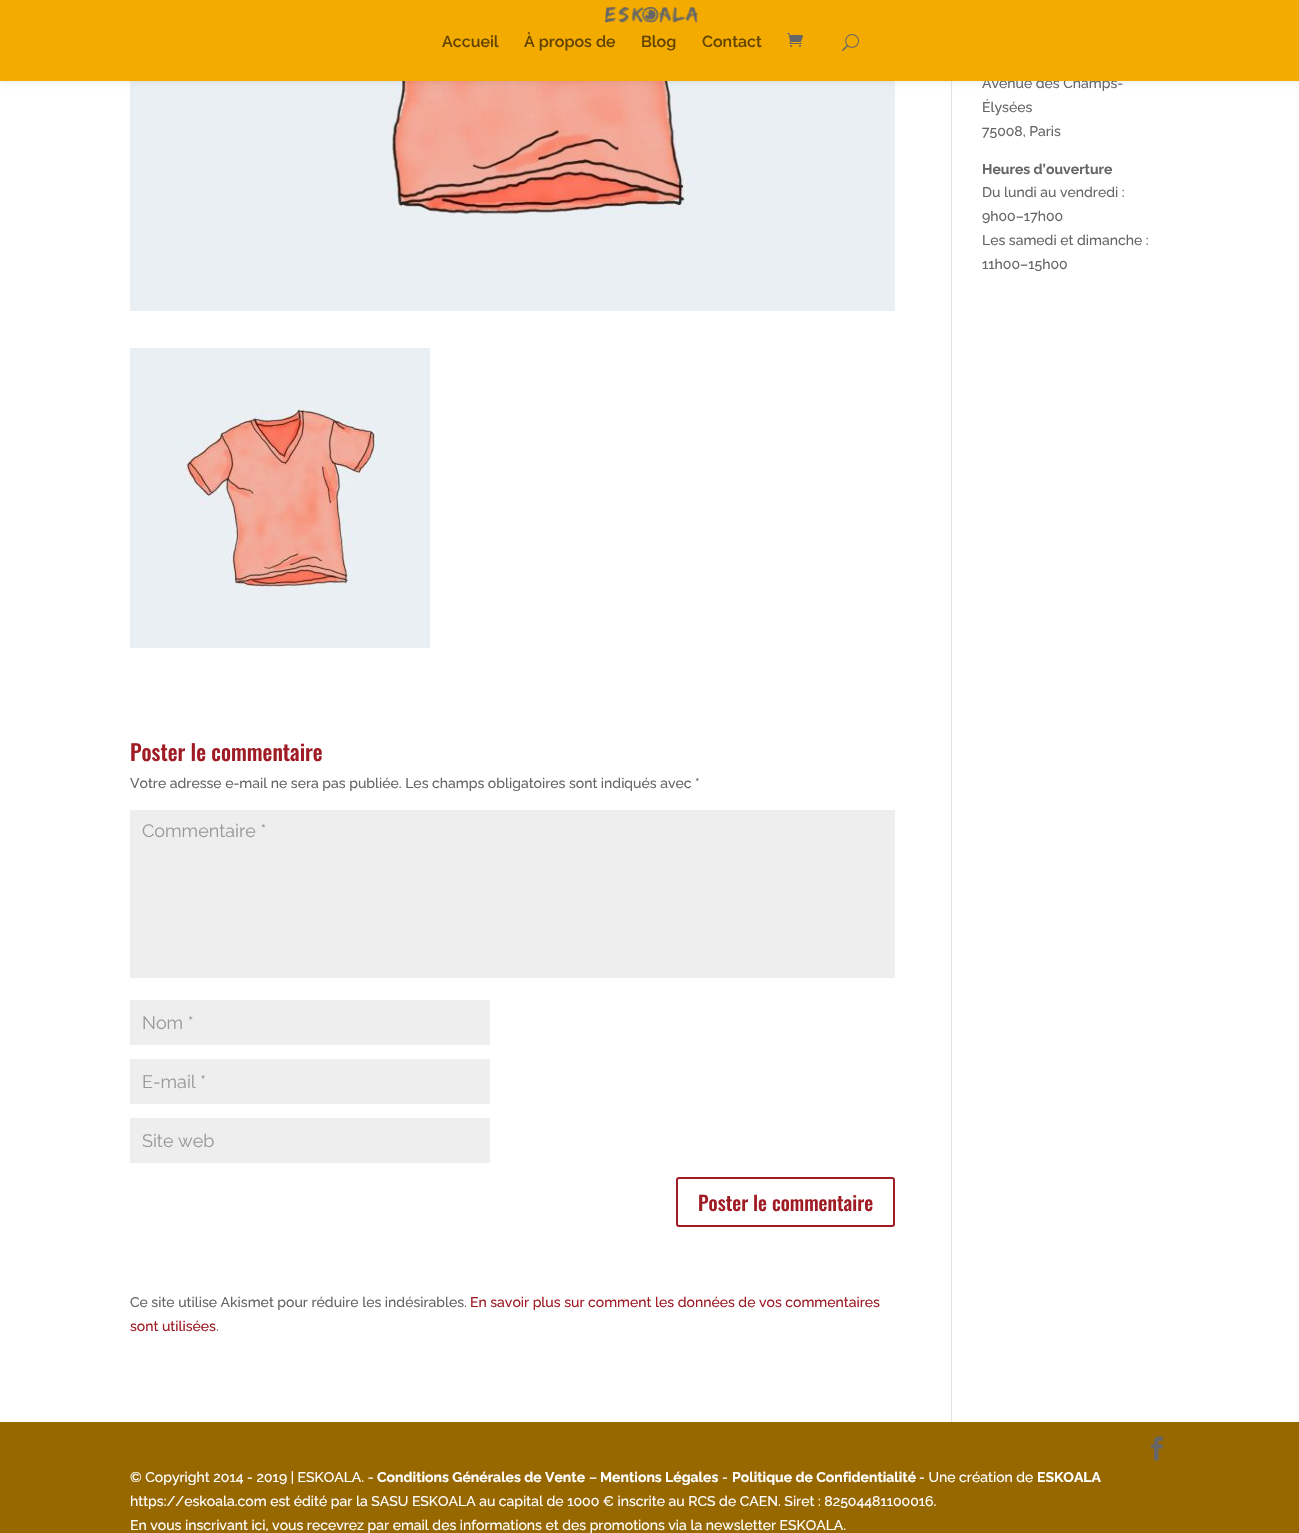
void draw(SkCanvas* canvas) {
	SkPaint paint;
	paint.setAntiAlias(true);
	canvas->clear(0xffffffff);
	canvas->drawImageRect(SkImages::DeferredFromEncodedData(SkData::MakeFromFileName("img4.png")), SkRect::MakeXYWH(130, 81, 765, 230), SkSamplingOptions());
	paint.setColor(0xffe2e2e2);
	canvas->drawRect(SkRect::MakeXYWH(951, 81, 1, 1341), paint);
	paint.setColor(0x1a000000);
	paint.setMaskFilter(SkMaskFilter::MakeBlur(kNormal_SkBlurStyle, 3.5));
	canvas->drawRect(SkRect::MakeXYWH(0, 0, 1299, 81), paint);
	paint.setMaskFilter(nullptr);
	SkFont f1(fontMgr->matchFamilyStyle("Raleway", SkFontStyle(500, SkFontStyle::kNormal_Width, SkFontStyle::kUpright_Slant)), 14);
	f1.setSubpixel(true);
	paint.setColor(0xff666666);
	canvas->drawString("Avenue des Champs-", 982, 88, f1, paint);
	paint.setColor(0xfff4ab00);
	canvas->drawRect(SkRect::MakeXYWH(0, 0, 1299, 81), paint);
	canvas->drawImageRect(SkImages::DeferredFromEncodedData(SkData::MakeFromFileName("img1.png")), SkRect::MakeXYWH(605, 7, 93, 16), SkSamplingOptions());
	SkFont f2(fontMgr->matchFamilyStyle("Raleway", SkFontStyle(600, SkFontStyle::kNormal_Width, SkFontStyle::kUpright_Slant)), 16);
	f2.setSubpixel(true);
	paint.setColor(0xff624400);
	canvas->drawString("Accueil", 442, 47, f2, paint);
	canvas->drawString("À propos de", 524, 47, f2, paint);
	canvas->drawString("Blog", 641, 47, f2, paint);
	canvas->drawString("Contact", 702, 47, f2, paint);
	canvas->drawImageRect(SkImages::DeferredFromEncodedData(SkData::MakeFromFileName("img2.png")), SkRect::MakeXYWH(787, 33, 16, 14), SkSamplingOptions());
	canvas->drawImageRect(SkImages::DeferredFromEncodedData(SkData::MakeFromFileName("img3.png")), SkRect::MakeXYWH(842, 34, 17, 18), SkSamplingOptions());
	paint.setColor(0xff666666);
	canvas->drawString("Élysées", 982, 112, f1, paint);
	canvas->drawString("75008, Paris", 982, 136, f1, paint);
	SkFont f3(fontMgr->matchFamilyStyle("Raleway", SkFontStyle::Bold()), 14);
	f3.setSubpixel(true);
	canvas->drawString("Heures d’ouverture", 982, 174, f3, paint);
	canvas->drawString("Du lundi au vendredi :", 982, 197, f1, paint);
	canvas->drawString("9h00–17h00", 982, 221, f1, paint);
	canvas->drawString("Les samedi et dimanche :", 982, 245, f1, paint);
	canvas->drawString("11h00–15h00", 982, 269, f1, paint);
	canvas->drawImageRect(SkImages::DeferredFromEncodedData(SkData::MakeFromFileName("img5.png")), SkRect::MakeXYWH(130, 348, 300, 300), SkSamplingOptions());
	SkFont f4(fontMgr->matchFamilyStyle("Oswald", SkFontStyle(500, SkFontStyle::kNormal_Width, SkFontStyle::kUpright_Slant)), 22);
	f4.setSubpixel(true);
	paint.setColor(0xffa01c25);
	canvas->drawString("Poster le commentaire", 130, 761, f4, paint);
	paint.setColor(0xff666666);
	canvas->drawString("Votre adresse e-mail ne sera pas publiée. Les champs obligatoires sont indiqués avec *", 130, 788, f1, paint);
	paint.setColor(0xffeeeeee);
	canvas->drawRect(SkRect::MakeXYWH(130, 810, 765, 168), paint);
	SkFont f5(fontMgr->matchFamilyStyle("Raleway", SkFontStyle::Normal()), 18);
	f5.setSubpixel(true);
	paint.setColor(0xff999999);
	canvas->drawString("Commentaire *", 142, 837, f5, paint);
	paint.setColor(0xffeeeeee);
	canvas->drawRect(SkRect::MakeXYWH(130, 1000, 360, 45), paint);
	paint.setColor(0xff999999);
	canvas->drawString("Nom *", 142, 1029, f5, paint);
	paint.setColor(0xffeeeeee);
	canvas->drawRect(SkRect::MakeXYWH(130, 1059, 360, 45), paint);
	paint.setColor(0xff999999);
	canvas->drawString("E-mail *", 142, 1088, f5, paint);
	paint.setColor(0xffeeeeee);
	canvas->drawRect(SkRect::MakeXYWH(130, 1118, 360, 45), paint);
	paint.setColor(0xff999999);
	canvas->drawString("Site web", 142, 1147, f5, paint);
	paint.setStroke(true);
	paint.setStrokeWidth(2);
	paint.setColor(0xffa01c25);
	canvas->drawRoundRect(SkRect::MakeXYWH(677, 1178, 217, 48), 2, 2, paint);
	SkFont f6(fontMgr->matchFamilyStyle("Oswald", SkFontStyle(500, SkFontStyle::kNormal_Width, SkFontStyle::kUpright_Slant)), 20);
	f6.setSubpixel(true);
	paint.setStroke(false);
	canvas->drawString("Poster le commentaire", 698, 1211, f6, paint);
	paint.setColor(0xff666666);
	canvas->drawString("Ce site utilise Akismet pour réduire les indésirables.", 130, 1307, f1, paint);
	paint.setColor(0xffa01c25);
	canvas->drawString("En savoir plus sur comment les données de vos commentaires", 470, 1307, f1, paint);
	canvas->drawString("sont utilisées", 130, 1331, f1, paint);
	paint.setColor(0xff666666);
	canvas->drawString(".", 216, 1331, f1, paint);
	paint.setColor(0xff986800);
	canvas->drawRect(SkRect::MakeXYWH(0, 1422, 1299, 111), paint);
	canvas->drawImageRect(SkImages::DeferredFromEncodedData(SkData::MakeFromFileName("img6.png")), SkRect::MakeXYWH(1151, 1436, 12, 25), SkSamplingOptions());
	paint.setColor(0xffffffff);
	canvas->drawString("© Copyright 2014 - 2019 | ESKOALA. -", 130, 1482, f1, paint);
	canvas->drawString("Conditions Générales de Vente", 377, 1482, f3, paint);
	canvas->drawString("–", 589, 1482, f1, paint);
	canvas->drawString("Mentions Légales", 600, 1482, f3, paint);
	canvas->drawString("-", 722, 1482, f1, paint);
	canvas->drawString("Politique de Confidentialité", 732, 1482, f3, paint);
	canvas->drawString("- Une création de", 919, 1482, f1, paint);
	canvas->drawString("ESKOALA", 1037, 1482, f3, paint);
	canvas->drawString("https://eskoala.com est édité par la SASU ESKOALA au capital de 1000 € inscrite au RCS de CAEN. Siret : 82504481100016.", 130, 1506, f1, paint);
	canvas->drawString("En vous inscrivant ici, vous recevrez par email des informations et des promotions via la newsletter ESKOALA.", 130, 1530, f1, paint);
}
